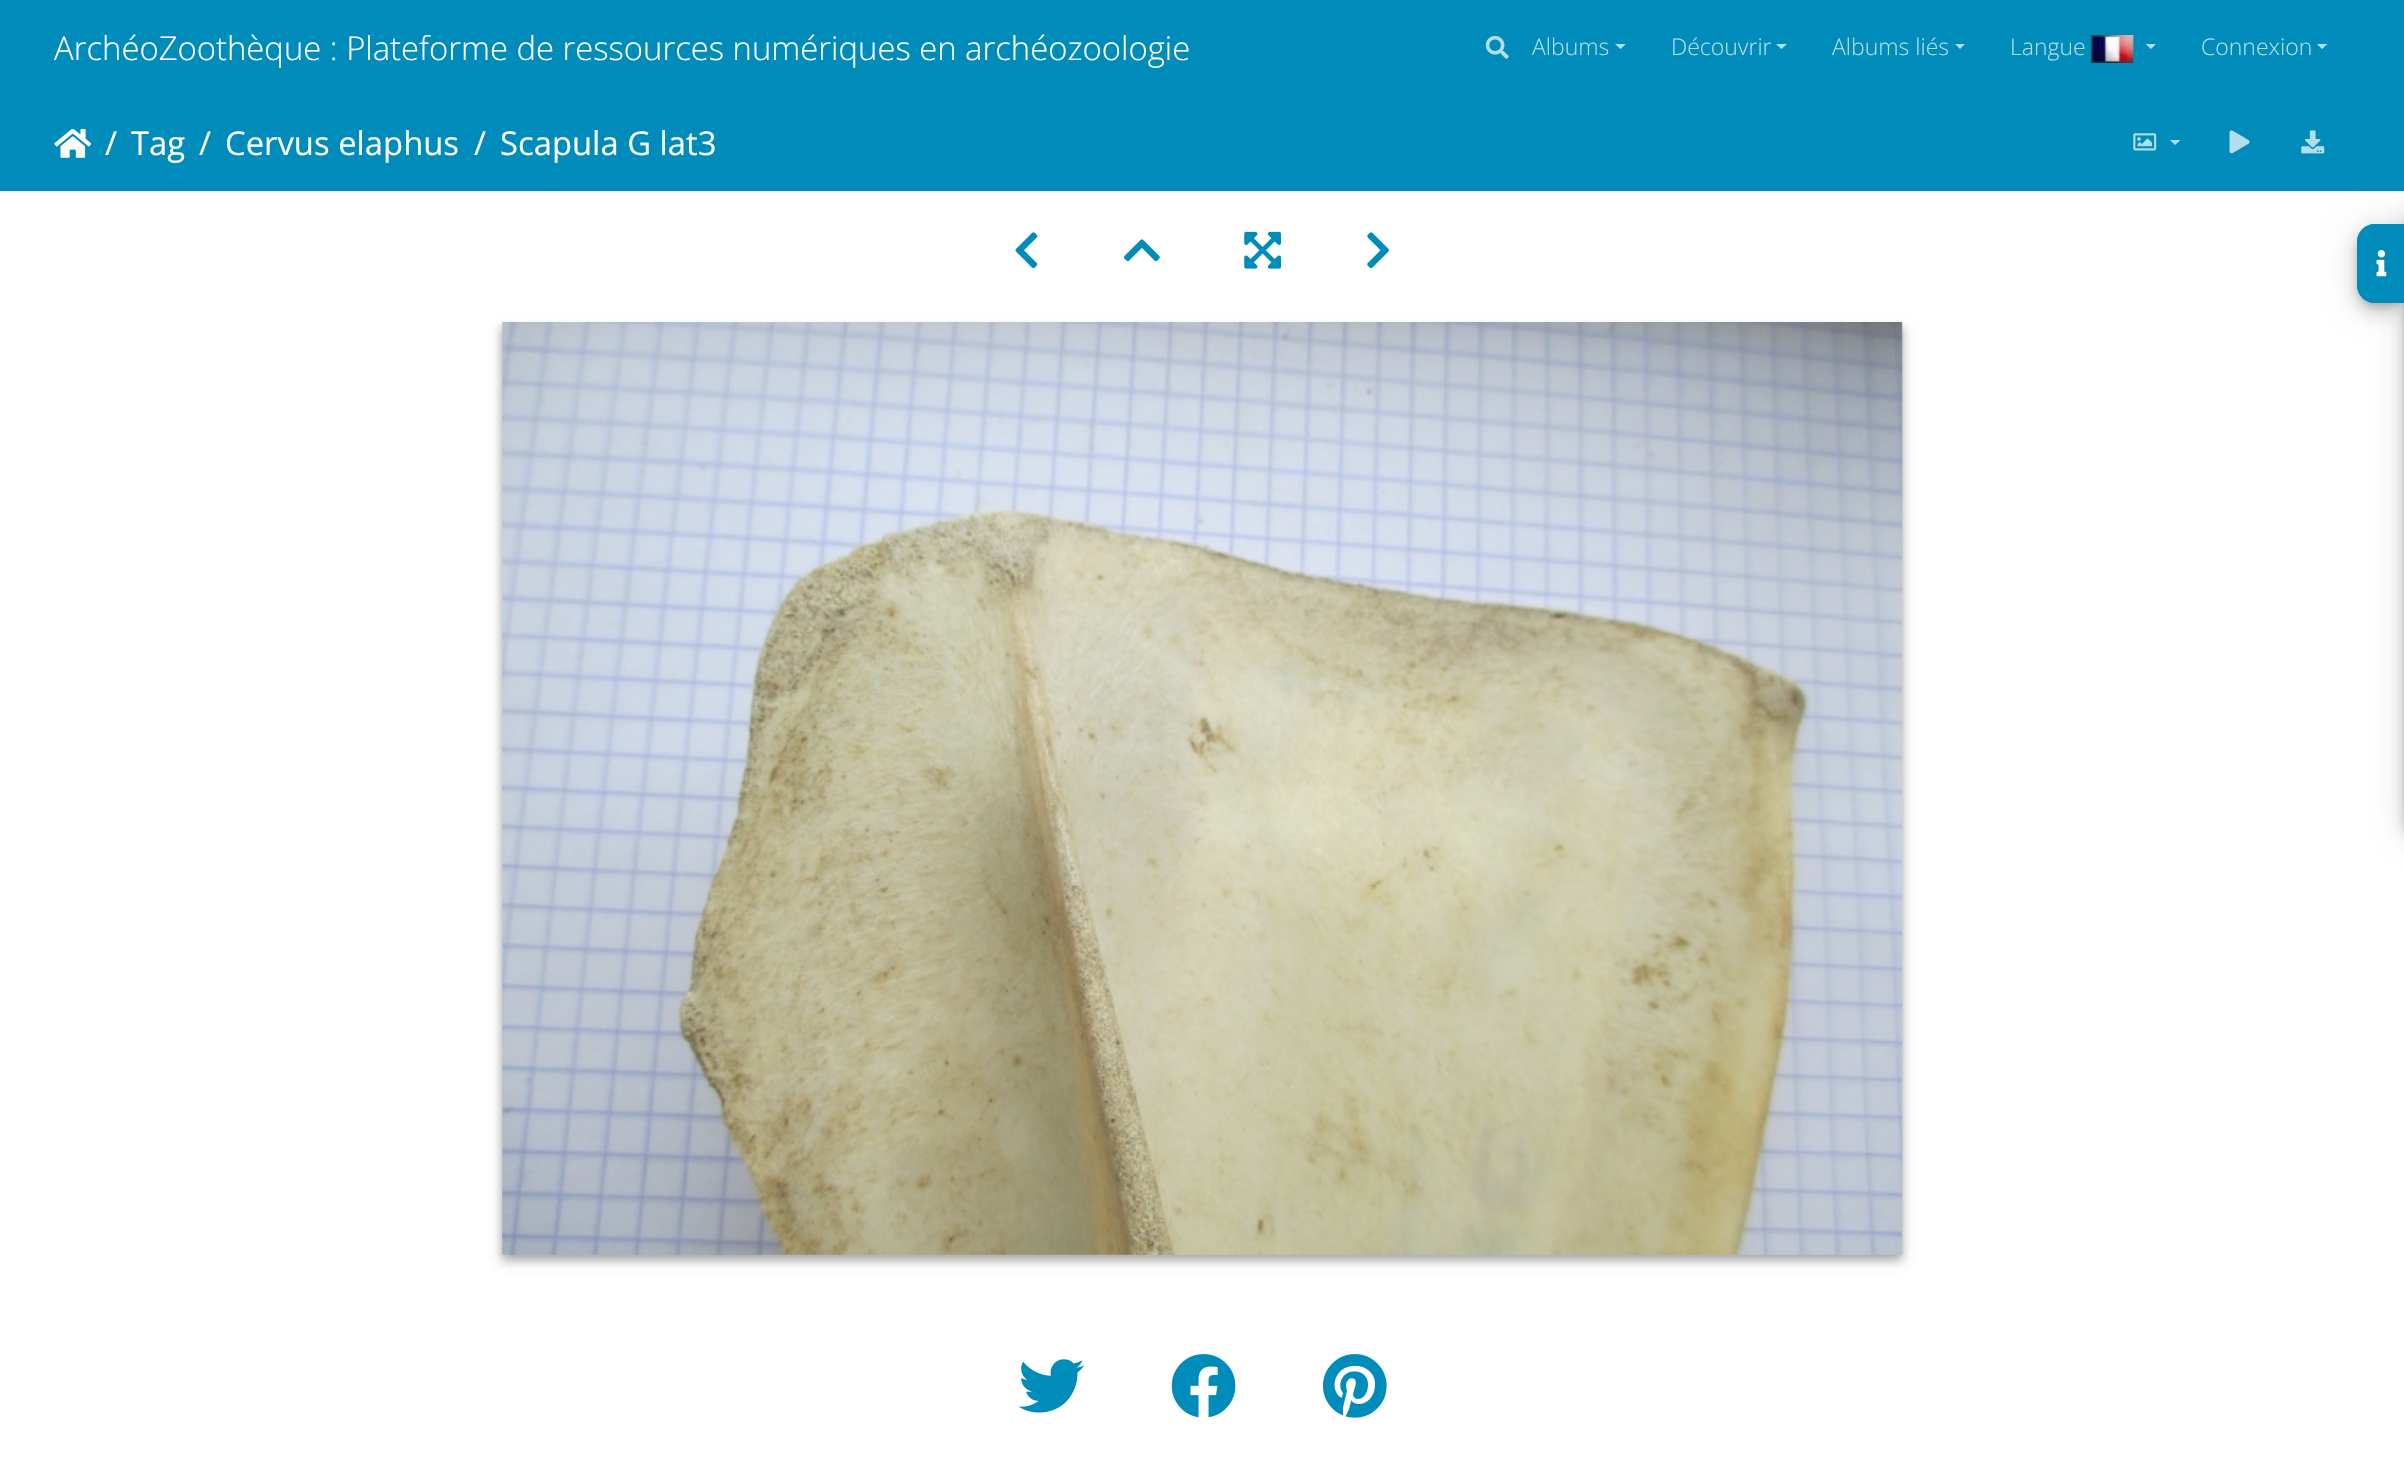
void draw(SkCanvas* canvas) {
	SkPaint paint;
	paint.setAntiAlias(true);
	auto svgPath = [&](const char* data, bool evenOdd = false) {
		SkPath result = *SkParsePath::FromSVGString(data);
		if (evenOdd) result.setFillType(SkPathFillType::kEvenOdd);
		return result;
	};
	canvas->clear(0xffffffff);
	paint.setColor(0x1f000000);
	paint.setMaskFilter(SkMaskFilter::MakeBlur(kNormal_SkBlurStyle, 16));
	canvas->drawRoundRect(SkRect::MakeXYWH(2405, 208, 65, 625), 18, 18, paint);
	paint.setMaskFilter(nullptr);
	paint.setColor(0x24000000);
	paint.setMaskFilter(SkMaskFilter::MakeBlur(kNormal_SkBlurStyle, 9));
	canvas->drawRoundRect(SkRect::MakeXYWH(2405, 217, 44, 625), 18, 18, paint);
	paint.setMaskFilter(nullptr);
	paint.setColor(0x1f000000);
	paint.setMaskFilter(SkMaskFilter::MakeBlur(kNormal_SkBlurStyle, 16));
	canvas->drawRoundRect(SkRect::MakeXYWH(2357, 226, 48, 79), 18, 18, paint);
	paint.setMaskFilter(nullptr);
	paint.setColor(0xff008cba);
	canvas->drawRect(SkRect::MakeXYWH(0, 0, 2404, 191), paint);
	SkFont f1(fontMgr->matchFamilyStyle("Open Sans", SkFontStyle(300, SkFontStyle::kNormal_Width, SkFontStyle::kUpright_Slant)), 32.8);
	f1.setSubpixel(true);
	paint.setColor(0xffffffff);
	canvas->drawString("ArchéoZoothèque : Plateforme de ressources numériques en archéozoologie", 54, 60, f1, paint);
	canvas->drawImageRect(SkImages::DeferredFromEncodedData(SkData::MakeFromFileName("img1.png")), SkRect::MakeXYWH(1485, 35, 24, 24), SkSamplingOptions());
	SkFont f2(fontMgr->matchFamilyStyle("Open Sans", SkFontStyle(300, SkFontStyle::kNormal_Width, SkFontStyle::kUpright_Slant)), 23);
	f2.setSubpixel(true);
	paint.setColor(0xffb3ddea);
	canvas->drawString("Albums", 1532, 55, f2, paint);
	canvas->drawPath(svgPath("M1615 44H1626L1620.5 49Z"), paint);
	canvas->drawString("Découvrir", 1671, 55, f2, paint);
	canvas->drawPath(svgPath("M1776 44H1787L1781.5 49Z"), paint);
	canvas->drawString("Albums liés", 1832, 55, f2, paint);
	canvas->drawPath(svgPath("M1955 44H1965L1960 49Z"), paint);
	canvas->drawString("Langue", 2010, 55, f2, paint);
	canvas->drawImageRect(SkImages::DeferredFromEncodedData(SkData::MakeFromFileName("img2.png")), SkRect::MakeXYWH(2091, 35, 43, 28), SkSamplingOptions());
	canvas->drawPath(svgPath("M2145.5 44H2156L2151 49Z"), paint);
	canvas->drawString("Connexion", 2201, 55, f2, paint);
	canvas->drawPath(svgPath("M2317 44H2327.5L2322 49Z"), paint);
	canvas->drawImageRect(SkImages::DeferredFromEncodedData(SkData::MakeFromFileName("img3.png")), SkRect::MakeXYWH(54, 129, 37, 29), SkSamplingOptions());
	SkFont f3(fontMgr->matchFamilyStyle("Open Sans", SkFontStyle::Normal()), 32.8);
	f3.setSubpixel(true);
	paint.setColor(0xffffffff);
	canvas->drawString("/", 105, 155, f3, paint);
	canvas->drawString("Tag", 131, 155, f3, paint);
	canvas->drawString("/", 199, 155, f3, paint);
	canvas->drawString("Cervus elaphus", 225, 155, f3, paint);
	canvas->drawString("/", 474, 155, f3, paint);
	canvas->drawString("Scapula G lat3", 500, 155, f3, paint);
	canvas->drawImageRect(SkImages::DeferredFromEncodedData(SkData::MakeFromFileName("img4.png")), SkRect::MakeXYWH(2133, 133, 24, 18), SkSamplingOptions());
	paint.setColor(0xffb3ddea);
	canvas->drawPath(svgPath("M2170 140H2180.5L2175 145Z"), paint);
	canvas->drawImageRect(SkImages::DeferredFromEncodedData(SkData::MakeFromFileName("img5.png")), SkRect::MakeXYWH(2229, 130, 21, 24), SkSamplingOptions());
	canvas->drawImageRect(SkImages::DeferredFromEncodedData(SkData::MakeFromFileName("img6.png")), SkRect::MakeXYWH(2301, 130, 24, 24), SkSamplingOptions());
	canvas->drawImageRect(SkImages::DeferredFromEncodedData(SkData::MakeFromFileName("img7.png")), SkRect::MakeXYWH(1015, 232, 23, 37), SkSamplingOptions());
	canvas->drawImageRect(SkImages::DeferredFromEncodedData(SkData::MakeFromFileName("img8.png")), SkRect::MakeXYWH(1124, 239, 36, 23), SkSamplingOptions());
	canvas->drawImageRect(SkImages::DeferredFromEncodedData(SkData::MakeFromFileName("img9.png")), SkRect::MakeXYWH(1244, 231, 37, 38), SkSamplingOptions());
	canvas->drawImageRect(SkImages::DeferredFromEncodedData(SkData::MakeFromFileName("img10.png")), SkRect::MakeXYWH(1367, 232, 22, 37), SkSamplingOptions());
	paint.setColor(0x33000000);
	paint.setMaskFilter(SkMaskFilter::MakeBlur(kNormal_SkBlurStyle, 4.5));
	canvas->drawRoundRect(SkRect::MakeXYWH(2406, 214, 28, 621), 16, 16, paint);
	paint.setMaskFilter(nullptr);
	paint.setMaskFilter(SkMaskFilter::MakeBlur(kNormal_SkBlurStyle, 4.5));
	canvas->drawRoundRect(SkRect::MakeXYWH(2359, 231, 44, 75), 16, 16, paint);
	paint.setMaskFilter(nullptr);
	paint.setColor(0x24000000);
	paint.setMaskFilter(SkMaskFilter::MakeBlur(kNormal_SkBlurStyle, 9));
	canvas->drawRoundRect(SkRect::MakeXYWH(2357, 235, 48, 78), 18, 18, paint);
	paint.setMaskFilter(nullptr);
	paint.setColor(0xff008cba);
	canvas->drawPath(svgPath("M2375 224H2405V303H2375C2365 303 2357 295 2357 285V242C2357 232 2365 224 2375 224Z"), paint);
	canvas->drawPath(svgPath("M2375 224H2404V303H2375C2365 303 2357 295 2357 285V242C2357 232 2365 224 2375 224ZM2375 226H2404V301H2375C2366 301 2359 294 2359 285V242C2359 233 2366 226 2375 226Z", true), paint);
	canvas->drawImageRect(SkImages::DeferredFromEncodedData(SkData::MakeFromFileName("img11.png")), SkRect::MakeXYWH(2376, 250, 11, 27), SkSamplingOptions());
	canvas->save();
	canvas->clipRect(SkRect::MakeXYWH(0, 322, 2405, 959));
	paint.setColor(0x3b000000);
	paint.setMaskFilter(SkMaskFilter::MakeBlur(kNormal_SkBlurStyle, 5));
	canvas->drawRect(SkRect::MakeXYWH(502, 327, 1400, 933), paint);
	paint.setMaskFilter(nullptr);
	canvas->restore();
	paint.setColor(0x29000000);
	paint.setMaskFilter(SkMaskFilter::MakeBlur(kNormal_SkBlurStyle, 5));
	canvas->drawRect(SkRect::MakeXYWH(502, 327, 1400, 933), paint);
	paint.setMaskFilter(nullptr);
	canvas->drawImageRect(SkImages::DeferredFromEncodedData(SkData::MakeFromFileName("img12.png")), SkRect::MakeXYWH(502, 322, 1401, 933), SkSamplingOptions());
	canvas->drawImageRect(SkImages::DeferredFromEncodedData(SkData::MakeFromFileName("img13.png")), SkRect::MakeXYWH(1018, 1359, 66, 54), SkSamplingOptions());
	canvas->drawImageRect(SkImages::DeferredFromEncodedData(SkData::MakeFromFileName("img14.png")), SkRect::MakeXYWH(1171, 1354, 65, 64), SkSamplingOptions());
	canvas->drawImageRect(SkImages::DeferredFromEncodedData(SkData::MakeFromFileName("img15.png")), SkRect::MakeXYWH(1323, 1354, 64, 64), SkSamplingOptions());
}
